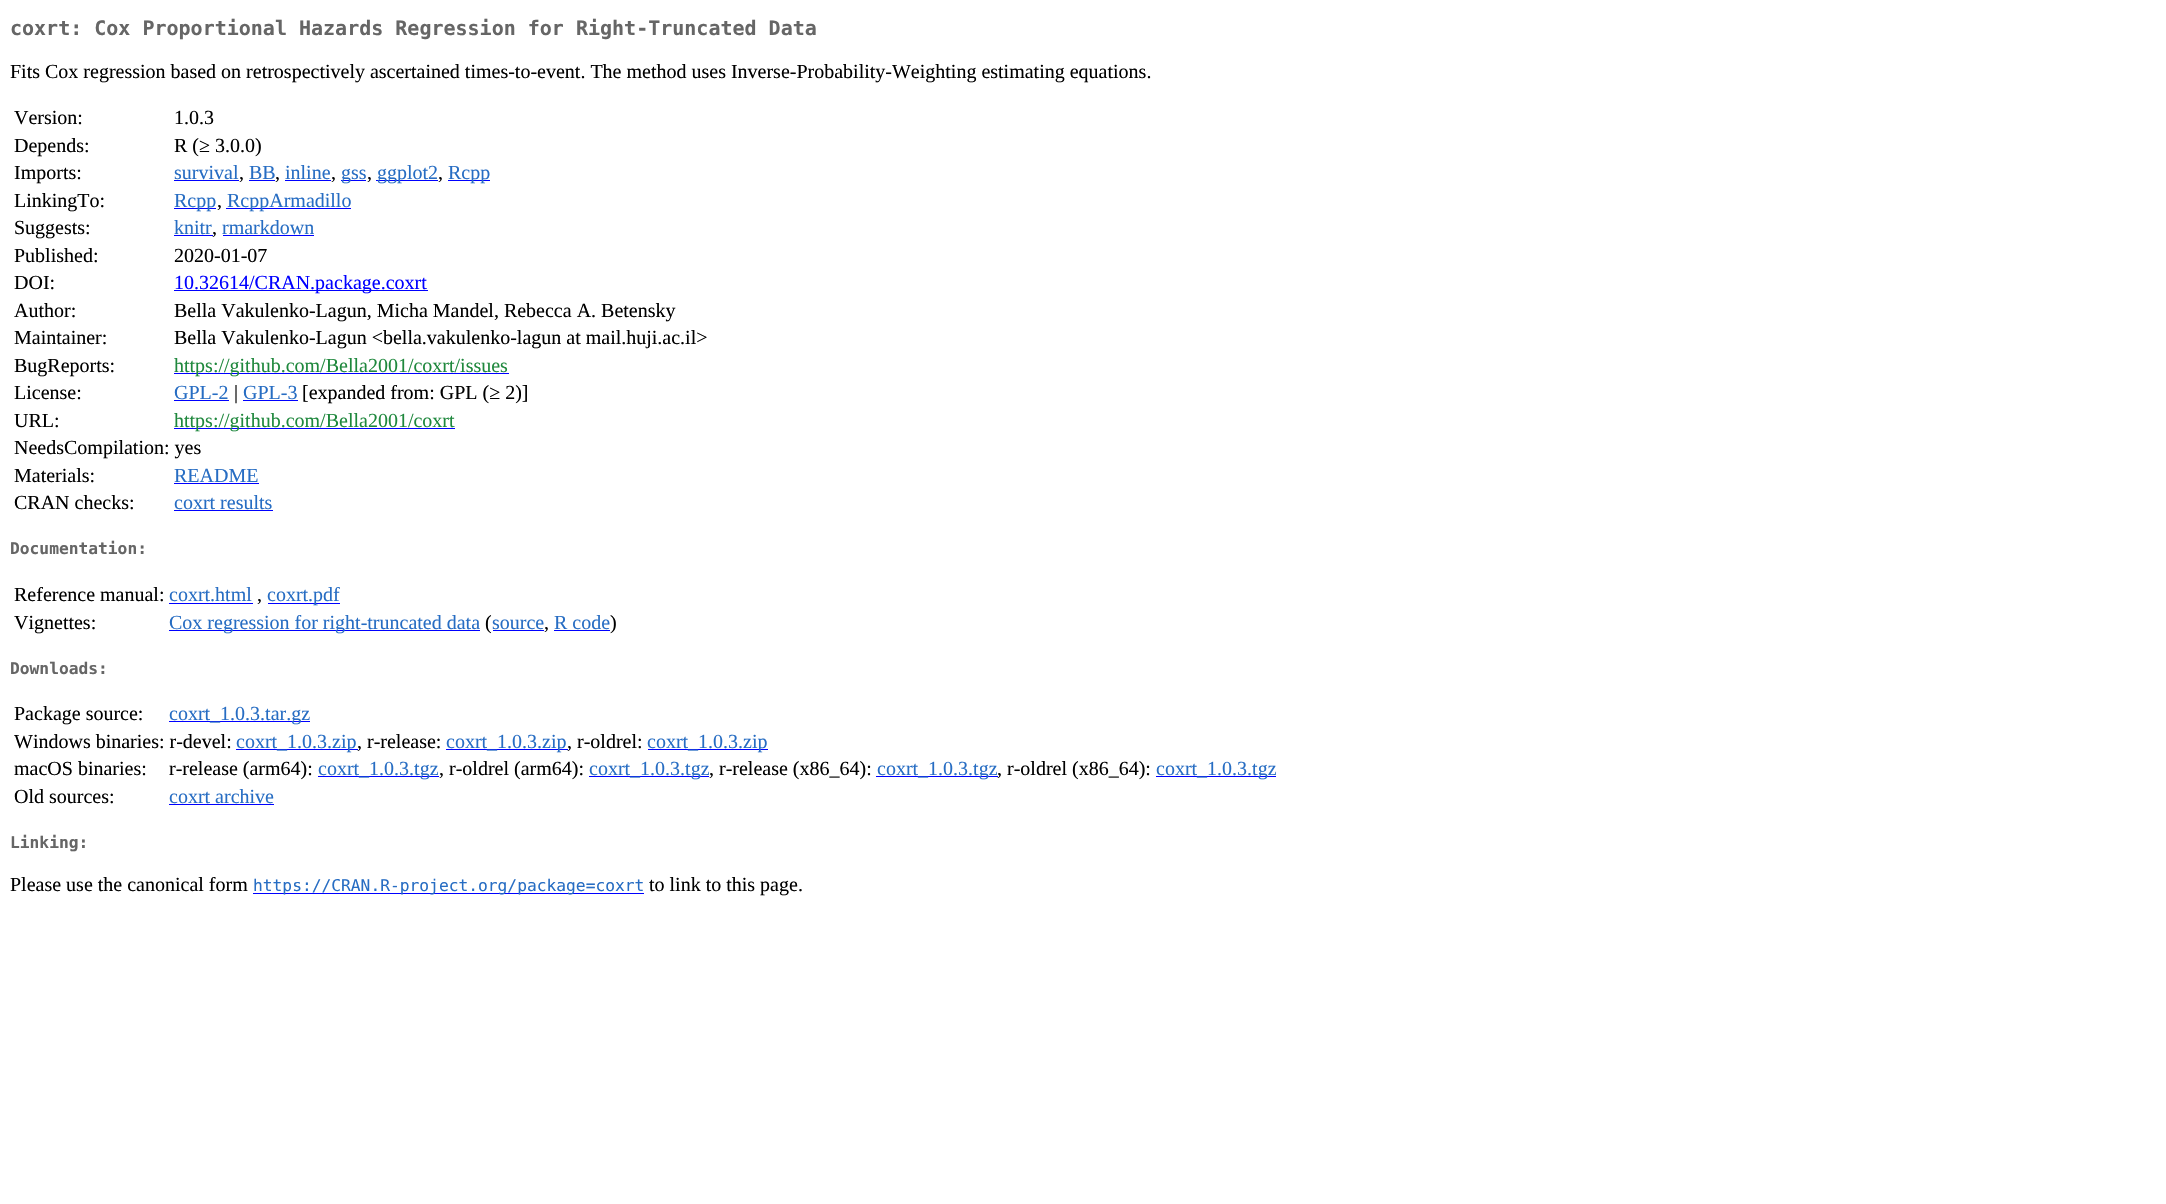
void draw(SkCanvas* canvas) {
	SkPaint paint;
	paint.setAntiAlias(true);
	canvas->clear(0xffffffff);
	SkFont f1(fontMgr->matchFamilyStyle("DejaVu Sans Mono", SkFontStyle::Bold()), 20);
	f1.setSubpixel(true);
	paint.setColor(0xff666666);
	canvas->drawString("coxrt: Cox Proportional Hazards Regression for Right-Truncated Data", 10, 35, f1, paint);
	SkFont f2(fontMgr->matchFamilyStyle("Liberation Serif", SkFontStyle::Normal()), 20);
	f2.setSubpixel(true);
	paint.setColor(0xff000000);
	canvas->drawString("Fits Cox regression based on retrospectively ascertained times-to-event. The method uses Inverse-Probability-Weighting estimating equations.", 10, 78, f2, paint);
	canvas->drawString("Version:", 14, 124, f2, paint);
	canvas->drawString("1.0.3", 174, 124, f2, paint);
	canvas->drawString("Depends:", 14, 152, f2, paint);
	canvas->drawString("R (≥ 3.0.0)", 174, 152, f2, paint);
	canvas->drawString("Imports:", 14, 179, f2, paint);
	paint.setColor(0xff276dc3);
	canvas->drawString("survival", 174, 179, f2, paint);
	paint.setColor(0xff0000ff);
	canvas->drawRect(SkRect::MakeXYWH(174, 180, 65, 1), paint);
	paint.setColor(0xff000000);
	canvas->drawString(",", 239, 179, f2, paint);
	paint.setColor(0xff276dc3);
	canvas->drawString("BB", 249, 179, f2, paint);
	paint.setColor(0xff0000ff);
	canvas->drawRect(SkRect::MakeXYWH(249, 180, 26, 1), paint);
	paint.setColor(0xff000000);
	canvas->drawString(",", 275, 179, f2, paint);
	paint.setColor(0xff276dc3);
	canvas->drawString("inline", 285, 179, f2, paint);
	paint.setColor(0xff0000ff);
	canvas->drawRect(SkRect::MakeXYWH(285, 180, 46, 1), paint);
	paint.setColor(0xff000000);
	canvas->drawString(",", 331, 179, f2, paint);
	paint.setColor(0xff0000ff);
	canvas->drawRect(SkRect::MakeXYWH(341, 180, 25, 1), paint);
	paint.setColor(0xff276dc3);
	canvas->drawString("gss", 341, 179, f2, paint);
	paint.setColor(0xff000000);
	canvas->drawString(",", 367, 179, f2, paint);
	paint.setColor(0xff0000ff);
	canvas->drawRect(SkRect::MakeXYWH(376, 180, 62, 1), paint);
	paint.setColor(0xff276dc3);
	canvas->drawString("ggplot2", 377, 179, f2, paint);
	paint.setColor(0xff000000);
	canvas->drawString(",", 438, 179, f2, paint);
	paint.setColor(0xff0000ff);
	canvas->drawRect(SkRect::MakeXYWH(448, 180, 42, 1), paint);
	paint.setColor(0xff276dc3);
	canvas->drawString("Rcpp", 448, 179, f2, paint);
	paint.setColor(0xff000000);
	canvas->drawString("LinkingTo:", 14, 207, f2, paint);
	paint.setColor(0xff0000ff);
	canvas->drawRect(SkRect::MakeXYWH(174, 208, 42, 1), paint);
	paint.setColor(0xff276dc3);
	canvas->drawString("Rcpp", 174, 207, f2, paint);
	paint.setColor(0xff000000);
	canvas->drawString(",", 217, 207, f2, paint);
	paint.setColor(0xff0000ff);
	canvas->drawRect(SkRect::MakeXYWH(226, 208, 125, 1), paint);
	paint.setColor(0xff276dc3);
	canvas->drawString("RcppArmadillo", 227, 207, f2, paint);
	paint.setColor(0xff000000);
	canvas->drawString("Suggests:", 14, 234, f2, paint);
	paint.setColor(0xff276dc3);
	canvas->drawString("knitr", 174, 234, f2, paint);
	paint.setColor(0xff0000ff);
	canvas->drawRect(SkRect::MakeXYWH(174, 235, 39, 1), paint);
	paint.setColor(0xff000000);
	canvas->drawString(",", 212, 234, f2, paint);
	paint.setColor(0xff276dc3);
	canvas->drawString("rmarkdown", 222, 234, f2, paint);
	paint.setColor(0xff0000ff);
	canvas->drawRect(SkRect::MakeXYWH(223, 235, 91, 1), paint);
	paint.setColor(0xff000000);
	canvas->drawString("Published:", 14, 262, f2, paint);
	canvas->drawString("2020-01-07", 174, 262, f2, paint);
	canvas->drawString("DOI:", 14, 289, f2, paint);
	paint.setColor(0xff0000ff);
	canvas->drawRect(SkRect::MakeXYWH(174, 290, 254, 1), paint);
	canvas->drawString("10.32614/CRAN.package.coxrt", 174, 289, f2, paint);
	paint.setColor(0xff000000);
	canvas->drawString("Author:", 14, 317, f2, paint);
	canvas->drawString("Bella Vakulenko-Lagun, Micha Mandel, Rebecca A. Betensky", 174, 317, f2, paint);
	canvas->drawString("Maintainer:", 14, 344, f2, paint);
	canvas->drawString("Bella Vakulenko-Lagun <bella.vakulenko-lagun at mail.huji.ac.il>", 174, 344, f2, paint);
	canvas->drawString("BugReports:", 14, 372, f2, paint);
	paint.setColor(0xff0000ff);
	canvas->drawRect(SkRect::MakeXYWH(174, 373, 335, 1), paint);
	paint.setColor(0xff1f883d);
	canvas->drawString("https://github.com/Bella2001/coxrt/issues", 174, 372, f2, paint);
	paint.setColor(0xff000000);
	canvas->drawString("License:", 14, 399, f2, paint);
	paint.setColor(0xff276dc3);
	canvas->drawString("GPL-2", 174, 399, f2, paint);
	paint.setColor(0xff0000ff);
	canvas->drawRect(SkRect::MakeXYWH(174, 400, 55, 1), paint);
	paint.setColor(0xff000000);
	canvas->drawString("|", 234, 399, f2, paint);
	paint.setColor(0xff276dc3);
	canvas->drawString("GPL-3", 243, 399, f2, paint);
	paint.setColor(0xff0000ff);
	canvas->drawRect(SkRect::MakeXYWH(243, 400, 55, 1), paint);
	paint.setColor(0xff000000);
	canvas->drawString("[expanded from: GPL (≥ 2)]", 302, 399, f2, paint);
	canvas->drawString("URL:", 14, 427, f2, paint);
	paint.setColor(0xff0000ff);
	canvas->drawRect(SkRect::MakeXYWH(174, 428, 281, 1), paint);
	paint.setColor(0xff1f883d);
	canvas->drawString("https://github.com/Bella2001/coxrt", 174, 427, f2, paint);
	paint.setColor(0xff000000);
	canvas->drawString("NeedsCompilation: yes", 14, 454, f2, paint);
	canvas->drawString("Materials:", 14, 482, f2, paint);
	paint.setColor(0xff276dc3);
	canvas->drawString("README", 174, 482, f2, paint);
	paint.setColor(0xff0000ff);
	canvas->drawRect(SkRect::MakeXYWH(174, 483, 85, 1), paint);
	paint.setColor(0xff000000);
	canvas->drawString("CRAN checks:", 14, 509, f2, paint);
	paint.setColor(0xff276dc3);
	canvas->drawString("coxrt results", 174, 509, f2, paint);
	paint.setColor(0xff0000ff);
	canvas->drawRect(SkRect::MakeXYWH(174, 510, 99, 1), paint);
	SkFont f3(fontMgr->matchFamilyStyle("DejaVu Sans Mono", SkFontStyle::Bold()), 16.25);
	f3.setSubpixel(true);
	paint.setColor(0xff666666);
	canvas->drawString("Documentation:", 10, 554, f3, paint);
	paint.setColor(0xff000000);
	canvas->drawString("Reference manual:", 14, 601, f2, paint);
	paint.setColor(0xff276dc3);
	canvas->drawString("coxrt.html", 169, 601, f2, paint);
	paint.setColor(0xff0000ff);
	canvas->drawRect(SkRect::MakeXYWH(169, 603, 84, 1), paint);
	paint.setColor(0xff000000);
	canvas->drawString(",", 257, 601, f2, paint);
	paint.setColor(0xff0000ff);
	canvas->drawRect(SkRect::MakeXYWH(268, 603, 72, 1), paint);
	paint.setColor(0xff276dc3);
	canvas->drawString("coxrt.pdf", 267, 601, f2, paint);
	paint.setColor(0xff000000);
	canvas->drawString("Vignettes:", 14, 629, f2, paint);
	paint.setColor(0xff0000ff);
	canvas->drawRect(SkRect::MakeXYWH(169, 630, 311, 1), paint);
	paint.setColor(0xff276dc3);
	canvas->drawString("Cox regression for right-truncated data", 169, 629, f2, paint);
	paint.setColor(0xff000000);
	canvas->drawString("(", 485, 629, f2, paint);
	paint.setColor(0xff276dc3);
	canvas->drawString("source", 492, 629, f2, paint);
	paint.setColor(0xff0000ff);
	canvas->drawRect(SkRect::MakeXYWH(493, 630, 51, 1), paint);
	paint.setColor(0xff000000);
	canvas->drawString(",", 544, 629, f2, paint);
	paint.setColor(0xff276dc3);
	canvas->drawString("R code", 554, 629, f2, paint);
	paint.setColor(0xff0000ff);
	canvas->drawRect(SkRect::MakeXYWH(554, 630, 56, 1), paint);
	paint.setColor(0xff000000);
	canvas->drawString(")", 610, 629, f2, paint);
	paint.setColor(0xff666666);
	canvas->drawString("Downloads:", 10, 674, f3, paint);
	paint.setColor(0xff000000);
	canvas->drawString("Package source:", 14, 720, f2, paint);
	paint.setColor(0xff0000ff);
	canvas->drawRect(SkRect::MakeXYWH(169, 721, 141, 1), paint);
	paint.setColor(0xff276dc3);
	canvas->drawString("coxrt_1.0.3.tar.gz", 169, 720, f2, paint);
	paint.setColor(0xff000000);
	canvas->drawString("Windows binaries: r-devel:", 14, 748, f2, paint);
	paint.setColor(0xff0000ff);
	canvas->drawRect(SkRect::MakeXYWH(236, 749, 122, 1), paint);
	paint.setColor(0xff276dc3);
	canvas->drawString("coxrt_1.0.3.zip", 236, 748, f2, paint);
	paint.setColor(0xff000000);
	canvas->drawString(", r-release:", 357, 748, f2, paint);
	paint.setColor(0xff0000ff);
	canvas->drawRect(SkRect::MakeXYWH(446, 749, 122, 1), paint);
	paint.setColor(0xff276dc3);
	canvas->drawString("coxrt_1.0.3.zip", 446, 748, f2, paint);
	paint.setColor(0xff000000);
	canvas->drawString(", r-oldrel:", 567, 748, f2, paint);
	paint.setColor(0xff0000ff);
	canvas->drawRect(SkRect::MakeXYWH(648, 749, 120, 1), paint);
	paint.setColor(0xff276dc3);
	canvas->drawString("coxrt_1.0.3.zip", 647, 748, f2, paint);
	paint.setColor(0xff000000);
	canvas->drawString("macOS binaries:", 14, 775, f2, paint);
	canvas->drawString("r-release (arm64):", 169, 775, f2, paint);
	paint.setColor(0xff0000ff);
	canvas->drawRect(SkRect::MakeXYWH(318, 776, 121, 1), paint);
	paint.setColor(0xff276dc3);
	canvas->drawString("coxrt_1.0.3.tgz", 318, 775, f2, paint);
	paint.setColor(0xff000000);
	canvas->drawString(", r-oldrel (arm64):", 439, 775, f2, paint);
	paint.setColor(0xff0000ff);
	canvas->drawRect(SkRect::MakeXYWH(589, 776, 120, 1), paint);
	paint.setColor(0xff276dc3);
	canvas->drawString("coxrt_1.0.3.tgz", 589, 775, f2, paint);
	paint.setColor(0xff000000);
	canvas->drawString(", r-release (x86_64):", 709, 775, f2, paint);
	paint.setColor(0xff0000ff);
	canvas->drawRect(SkRect::MakeXYWH(876, 776, 122, 1), paint);
	paint.setColor(0xff276dc3);
	canvas->drawString("coxrt_1.0.3.tgz", 877, 775, f2, paint);
	paint.setColor(0xff000000);
	canvas->drawString(", r-oldrel (x86_64):", 997, 775, f2, paint);
	paint.setColor(0xff0000ff);
	canvas->drawRect(SkRect::MakeXYWH(1156, 776, 120, 1), paint);
	paint.setColor(0xff276dc3);
	canvas->drawString("coxrt_1.0.3.tgz", 1156, 775, f2, paint);
	paint.setColor(0xff000000);
	canvas->drawString("Old sources:", 14, 803, f2, paint);
	paint.setColor(0xff276dc3);
	canvas->drawString("coxrt archive", 169, 803, f2, paint);
	paint.setColor(0xff0000ff);
	canvas->drawRect(SkRect::MakeXYWH(169, 804, 105, 1), paint);
	paint.setColor(0xff666666);
	canvas->drawString("Linking:", 10, 848, f3, paint);
	paint.setColor(0xff000000);
	canvas->drawString("Please use the canonical form", 10, 891, f2, paint);
	paint.setColor(0xff0000ff);
	canvas->drawRect(SkRect::MakeXYWH(253, 893, 391, 1), paint);
	SkFont f4(fontMgr->matchFamilyStyle("DejaVu Sans Mono", SkFontStyle::Normal()), 16.25);
	f4.setSubpixel(true);
	paint.setColor(0xff276dc3);
	canvas->drawString("https://CRAN.R-project.org/package=coxrt", 253, 891, f4, paint);
	paint.setColor(0xff000000);
	canvas->drawString("to link to this page.", 649, 891, f2, paint);
}
